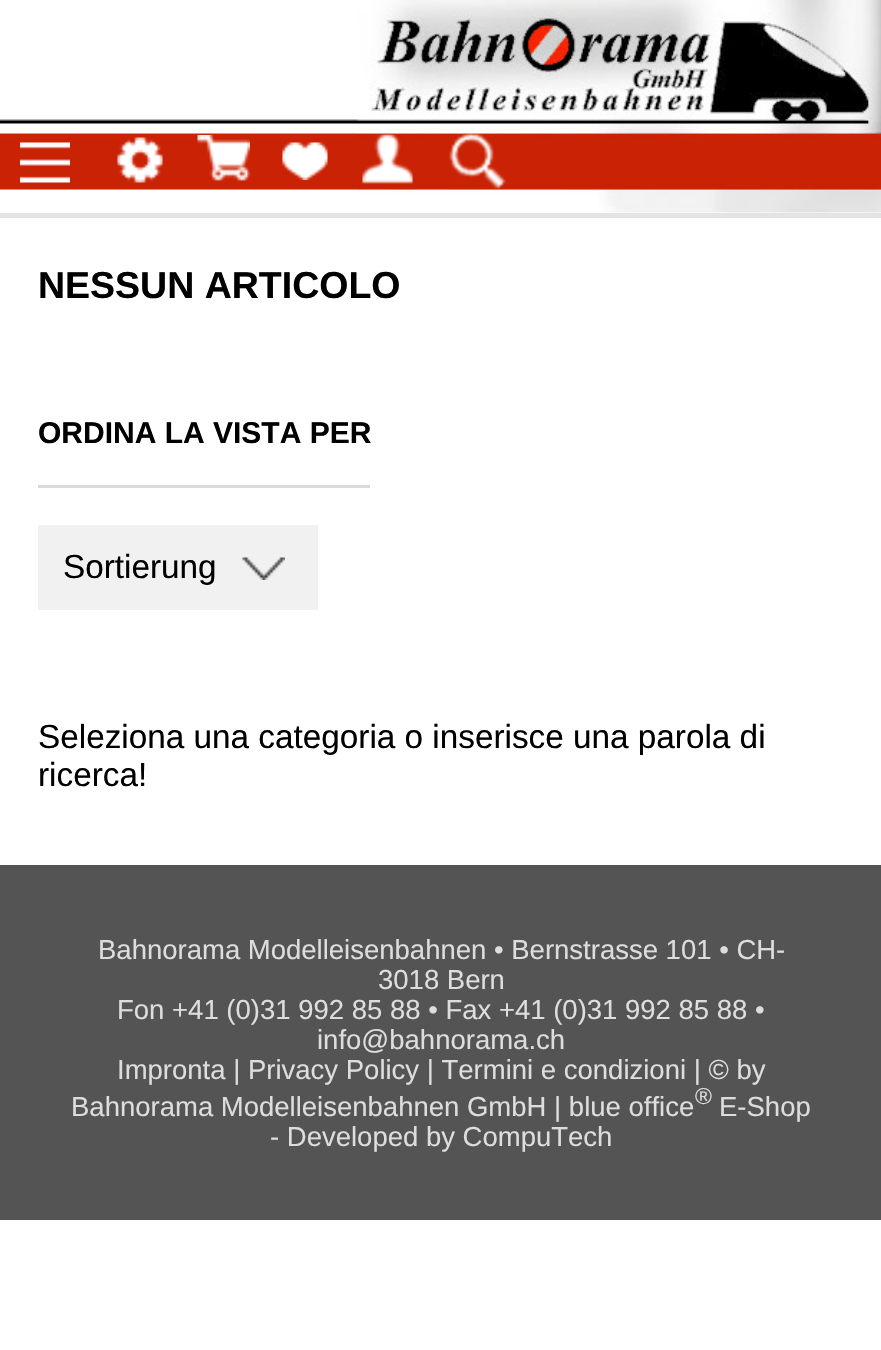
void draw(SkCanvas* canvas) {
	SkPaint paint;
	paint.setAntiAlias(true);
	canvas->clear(0xffffffff);
	canvas->drawImageRect(SkImages::DeferredFromEncodedData(SkData::MakeFromFileName("img1.png")), SkRect::MakeXYWH(0, 119, 358, 71), SkSamplingOptions());
	paint.setColor(0xffe4e4e4);
	canvas->drawRect(SkRect::MakeXYWH(0, 213, 881, 5), paint);
	canvas->drawImageRect(SkImages::DeferredFromEncodedData(SkData::MakeFromFileName("img2.png")), SkRect::MakeXYWH(20, 142, 50, 41), SkSamplingOptions());
	canvas->drawImageRect(SkImages::DeferredFromEncodedData(SkData::MakeFromFileName("img3.png")), SkRect::MakeXYWH(117, 137, 46, 46), SkSamplingOptions());
	canvas->drawImageRect(SkImages::DeferredFromEncodedData(SkData::MakeFromFileName("img4.png")), SkRect::MakeXYWH(197, 135, 53, 46), SkSamplingOptions());
	canvas->drawImageRect(SkImages::DeferredFromEncodedData(SkData::MakeFromFileName("img5.png")), SkRect::MakeXYWH(282, 142, 46, 38), SkSamplingOptions());
	canvas->drawImageRect(SkImages::DeferredFromEncodedData(SkData::MakeFromFileName("img7.png")), SkRect::MakeXYWH(357, 0, 524, 213), SkSamplingOptions());
	canvas->drawImageRect(SkImages::DeferredFromEncodedData(SkData::MakeFromFileName("img6.png")), SkRect::MakeXYWH(362, 134, 51, 50), SkSamplingOptions());
	canvas->drawImageRect(SkImages::DeferredFromEncodedData(SkData::MakeFromFileName("img8.png")), SkRect::MakeXYWH(449, 133, 57, 56), SkSamplingOptions());
	SkFont f1(fontMgr->matchFamilyStyle("Liberation Sans", SkFontStyle::Bold()), 37.5);
	f1.setSubpixel(true);
	paint.setColor(0xff000000);
	canvas->drawString("NESSUN ARTICOLO", 38, 298, f1, paint);
	paint.setColor(0xffdbdbdb);
	canvas->drawRect(SkRect::MakeXYWH(38, 485, 332, 3), paint);
	SkFont f2(fontMgr->matchFamilyStyle("Liberation Sans", SkFontStyle::Bold()), 30);
	f2.setSubpixel(true);
	paint.setColor(0xff000000);
	canvas->drawString("ORDINA LA VISTA PER", 38, 443, f2, paint);
	paint.setColor(0xfff1f1f1);
	canvas->drawRect(SkRect::MakeXYWH(38, 525, 280, 85), paint);
	SkFont f3(fontMgr->matchFamilyStyle("Liberation Sans", SkFontStyle::Normal()), 33.3);
	f3.setSubpixel(true);
	paint.setColor(0xff000000);
	canvas->drawString("Sortierung", 63, 578, f3, paint);
	canvas->drawImageRect(SkImages::DeferredFromEncodedData(SkData::MakeFromFileName("img9.png")), SkRect::MakeXYWH(242, 557, 43, 23), SkSamplingOptions());
	canvas->drawString("Seleziona una categoria o inserisce una parola di", 38, 748, f3, paint);
	canvas->drawString("ricerca!", 38, 786, f3, paint);
	paint.setColor(0xff545454);
	canvas->drawRect(SkRect::MakeXYWH(0, 865, 881, 355), paint);
	SkFont f4(fontMgr->matchFamilyStyle("Liberation Sans", SkFontStyle::Normal()), 27.5);
	f4.setSubpixel(true);
	paint.setColor(0xffdddddd);
	canvas->drawString("Bahnorama Modelleisenbahnen • Bernstrasse 101 • CH-", 98, 959, f4, paint);
	canvas->drawString("3018 Bern", 378, 989, f4, paint);
	canvas->drawString("Fon +41 (0)31 992 85 88 • Fax +41 (0)31 992 85 88 •", 117, 1019, f4, paint);
	canvas->drawString("info@bahnorama.ch", 317, 1049, f4, paint);
	canvas->drawString("Impronta | Privacy Policy | Termini e condizioni | © by", 117, 1079, f4, paint);
	canvas->drawString("Bahnorama Modelleisenbahnen GmbH | blue office", 71, 1116, f4, paint);
	SkFont f5(fontMgr->matchFamilyStyle("Liberation Sans", SkFontStyle::Normal()), 23);
	f5.setSubpixel(true);
	canvas->drawString("®", 695, 1104, f5, paint);
	canvas->drawString("E-Shop", 719, 1116, f4, paint);
	canvas->drawString("- Developed by CompuTech", 270, 1146, f4, paint);
}
